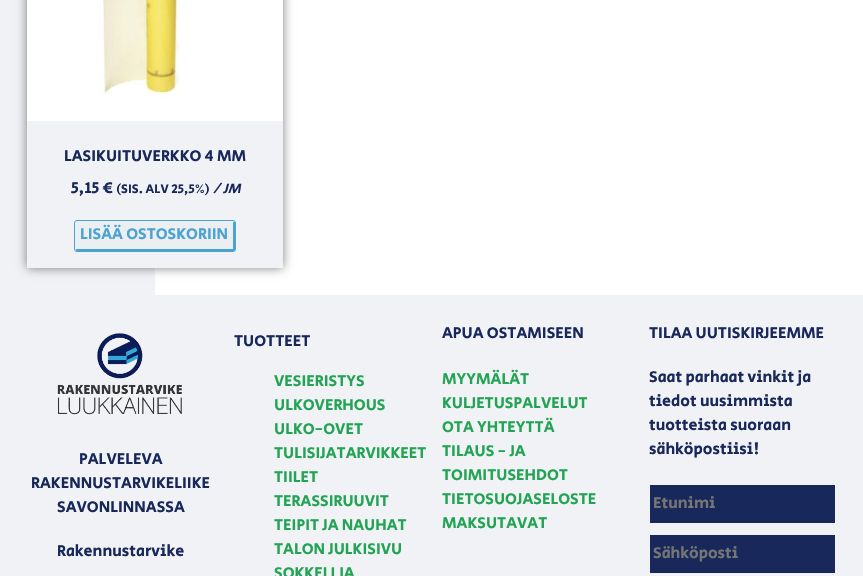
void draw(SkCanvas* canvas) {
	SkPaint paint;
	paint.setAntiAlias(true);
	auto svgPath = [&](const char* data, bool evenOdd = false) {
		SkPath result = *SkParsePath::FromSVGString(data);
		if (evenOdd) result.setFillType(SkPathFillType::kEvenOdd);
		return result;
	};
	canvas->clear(0xffffffff);
	paint.setColor(0xfff0f2f5);
	canvas->drawRect(SkRect::MakeXYWH(0, 0, 155, 295), paint);
	paint.setColor(0x80000000);
	paint.setMaskFilter(SkMaskFilter::MakeBlur(kNormal_SkBlurStyle, 5));
	canvas->drawRect(SkRect::MakeXYWH(27, -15, 256, 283), paint);
	paint.setMaskFilter(nullptr);
	paint.setColor(0xfff0f2f5);
	canvas->drawRect(SkRect::MakeXYWH(27, 121, 256, 147), paint);
	canvas->drawImageRect(SkImages::DeferredFromEncodedData(SkData::MakeFromFileName("img1.png")), SkRect::MakeXYWH(27, 0, 256, 121), SkSamplingOptions());
	SkFont f1(fontMgr->matchFamilyStyle("Secular One", SkFontStyle::Normal()), 16);
	f1.setSubpixel(true);
	paint.setColor(0xff18285a);
	canvas->drawString("LASIKUITUVERKKO 4 MM", 64, 161, f1, paint);
	canvas->drawString("5,15 €", 71, 193, f1, paint);
	SkFont f2(fontMgr->matchFamilyStyle("Secular One", SkFontStyle::Normal()), 12.75);
	f2.setSubpixel(true);
	canvas->drawString("(SIS. ALV 25,5%)", 116, 193, f2, paint);
	SkFont f3(fontMgr->matchFamilyStyle("Secular One", SkFontStyle::Italic()), 14);
	f3.setSubpixel(true);
	canvas->drawString("/ JM", 213, 193, f3, paint);
	paint.setColor(0xffeceff2);
	canvas->drawPath(svgPath("M77 221H233V249H75V223C75 222 76 221 77 221Z"), paint);
	paint.setStroke(true);
	paint.setStrokeWidth(1);
	paint.setColor(0xff4ca3d1);
	canvas->drawRoundRect(SkRect::MakeXYWH(74.5, 220.5, 161, 31), 2.5, 2.5, paint);
	paint.setStroke(false);
	canvas->drawRect(SkRect::MakeXYWH(233, 222, 2, 29), paint);
	canvas->drawRect(SkRect::MakeXYWH(76, 249, 159, 2), paint);
	canvas->drawString("LISÄÄ OSTOSKORIIN", 80, 239, f1, paint);
	paint.setColor(0xfff0f2f5);
	canvas->drawRect(SkRect::MakeXYWH(0, 295, 863, 281), paint);
	canvas->drawImageRect(SkImages::DeferredFromEncodedData(SkData::MakeFromFileName("img2.png")), SkRect::MakeXYWH(57, 333, 125, 82), SkSamplingOptions());
	paint.setColor(0xff18285a);
	canvas->drawString("PALVELEVA", 79, 464, f1, paint);
	canvas->drawString("RAKENNUSTARVIKELIIKE", 31, 488, f1, paint);
	canvas->drawString("SAVONLINNASSA", 57, 512, f1, paint);
	canvas->drawString("Rakennustarvike", 57, 556, f1, paint);
	canvas->drawString("TUOTTEET", 234, 346, f1, paint);
	paint.setColor(0xff23a455);
	canvas->drawString("VESIERISTYS", 274, 386, f1, paint);
	canvas->drawString("ULKOVERHOUS", 274, 410, f1, paint);
	canvas->drawString("ULKO-OVET", 274, 434, f1, paint);
	canvas->drawString("TULISIJATARVIKKEET", 274, 458, f1, paint);
	canvas->drawString("TIILET", 274, 482, f1, paint);
	canvas->drawString("TERASSIRUUVIT", 274, 506, f1, paint);
	canvas->drawString("TEIPIT JA NAUHAT", 274, 530, f1, paint);
	canvas->drawString("TALON JULKISIVU", 274, 554, f1, paint);
	canvas->drawString("SOKKELI JA", 274, 578, f1, paint);
	paint.setColor(0xff18285a);
	canvas->drawString("APUA OSTAMISEEN", 442, 338, f1, paint);
	paint.setColor(0xff23a455);
	canvas->drawString("MYYMÄLÄT", 442, 384, f1, paint);
	canvas->drawString("KULJETUSPALVELUT", 442, 408, f1, paint);
	canvas->drawString("OTA YHTEYTTÄ", 442, 432, f1, paint);
	canvas->drawString("TILAUS - JA", 442, 456, f1, paint);
	canvas->drawString("TOIMITUSEHDOT", 442, 480, f1, paint);
	canvas->drawString("TIETOSUOJASELOSTE", 442, 504, f1, paint);
	canvas->drawString("MAKSUTAVAT", 442, 528, f1, paint);
	paint.setColor(0xff18285a);
	canvas->drawString("TILAA UUTISKIRJEEMME", 649, 338, f1, paint);
	canvas->drawString("Saat parhaat vinkit ja", 649, 382, f1, paint);
	canvas->drawString("tiedot uusimmista", 649, 406, f1, paint);
	canvas->drawString("tuotteista suoraan", 649, 430, f1, paint);
	canvas->drawString("sähköpostiisi!", 649, 454, f1, paint);
	canvas->drawRect(SkRect::MakeXYWH(650, 485, 185, 38), paint);
	paint.setColor(0xff757575);
	canvas->drawString("Etunimi", 653, 508, f1, paint);
	paint.setColor(0xff18285a);
	canvas->drawRect(SkRect::MakeXYWH(650, 535, 185, 38), paint);
	paint.setColor(0xff757575);
	canvas->drawString("Sähköposti", 653, 558, f1, paint);
}
